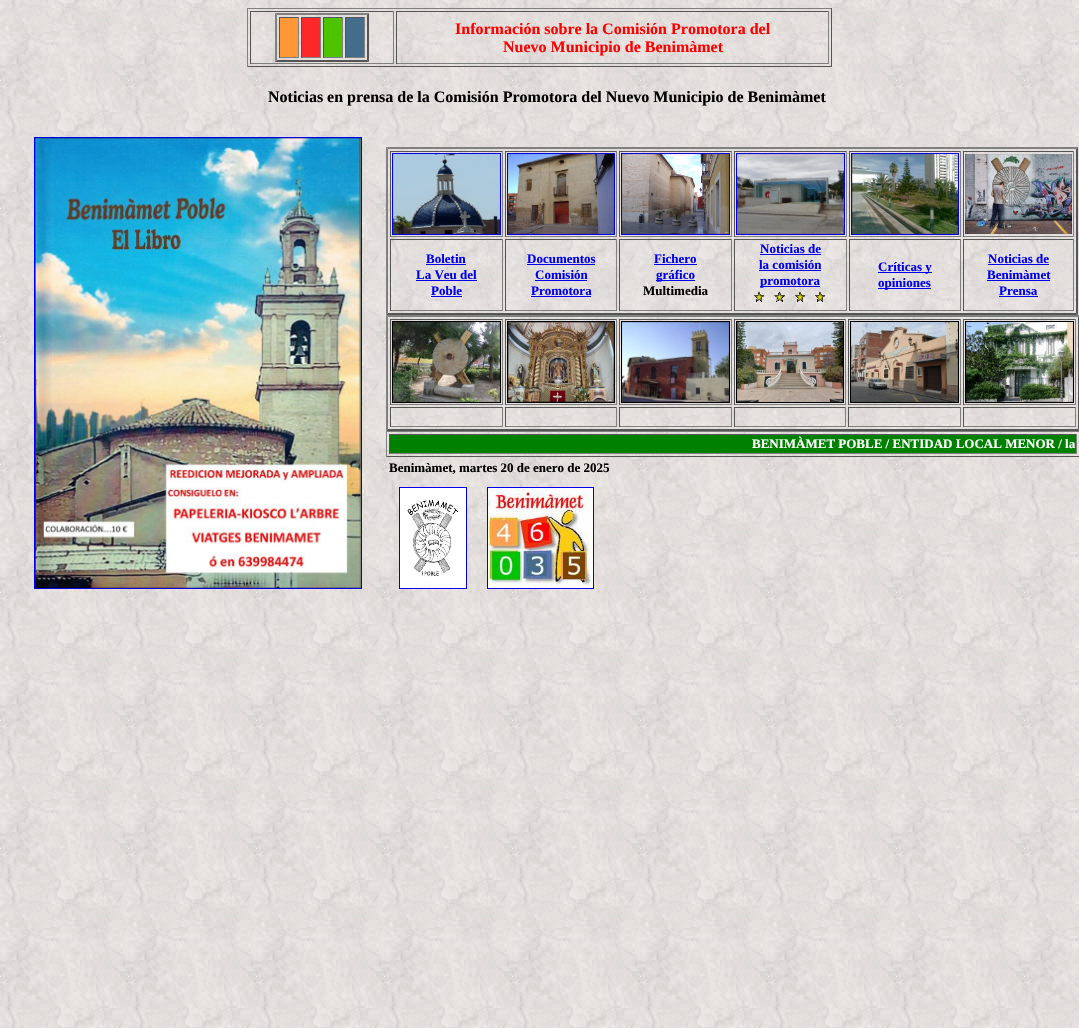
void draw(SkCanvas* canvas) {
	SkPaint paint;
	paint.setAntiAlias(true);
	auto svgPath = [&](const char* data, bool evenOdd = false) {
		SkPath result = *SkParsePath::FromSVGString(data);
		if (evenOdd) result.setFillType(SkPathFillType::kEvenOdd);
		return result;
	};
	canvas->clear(0xffffffff);
	canvas->drawImageRect(SkImages::DeferredFromEncodedData(SkData::MakeFromFileName("img1.png")), SkRect::MakeXYWH(0, 0, 1079, 1028), SkSamplingOptions());
	paint.setColor(0xff808080);
	canvas->drawRect(SkRect::MakeXYWH(247, 8, 585, 1), paint);
	paint.setColor(0xff555555);
	canvas->drawRect(SkRect::MakeXYWH(831, 8, 1, 59), paint);
	canvas->drawRect(SkRect::MakeXYWH(247, 66, 585, 1), paint);
	paint.setColor(0xff808080);
	canvas->drawRect(SkRect::MakeXYWH(247, 8, 1, 59), paint);
	paint.setColor(0xff555555);
	canvas->drawRect(SkRect::MakeXYWH(250, 11, 144, 1), paint);
	paint.setColor(0xff808080);
	canvas->drawRect(SkRect::MakeXYWH(393, 11, 1, 53), paint);
	canvas->drawRect(SkRect::MakeXYWH(250, 63, 144, 1), paint);
	paint.setColor(0xff555555);
	canvas->drawRect(SkRect::MakeXYWH(250, 11, 1, 53), paint);
	paint.setColor(0xff808080);
	canvas->drawPath(svgPath("M275 13H369L367 15H277Z"), paint);
	paint.setColor(0xff555555);
	canvas->drawPath(svgPath("M369 13V62L367 60V15Z"), paint);
	canvas->drawPath(svgPath("M369 62H275L277 60H367Z"), paint);
	paint.setColor(0xff808080);
	canvas->drawPath(svgPath("M275 62V13L277 15V60Z"), paint);
	paint.setColor(0xffff9736);
	canvas->drawRect(SkRect::MakeXYWH(280, 18, 18, 39), paint);
	paint.setColor(0xff555555);
	canvas->drawRect(SkRect::MakeXYWH(279, 17, 20, 1), paint);
	paint.setColor(0xff808080);
	canvas->drawRect(SkRect::MakeXYWH(298, 17, 1, 41), paint);
	canvas->drawRect(SkRect::MakeXYWH(279, 57, 20, 1), paint);
	paint.setColor(0xff555555);
	canvas->drawRect(SkRect::MakeXYWH(279, 17, 1, 41), paint);
	paint.setColor(0xffff2828);
	canvas->drawRect(SkRect::MakeXYWH(302, 18, 18, 39), paint);
	paint.setColor(0xff555555);
	canvas->drawRect(SkRect::MakeXYWH(301, 17, 20, 1), paint);
	paint.setColor(0xff808080);
	canvas->drawRect(SkRect::MakeXYWH(320, 17, 1, 41), paint);
	canvas->drawRect(SkRect::MakeXYWH(301, 57, 20, 1), paint);
	paint.setColor(0xff555555);
	canvas->drawRect(SkRect::MakeXYWH(301, 17, 1, 41), paint);
	paint.setColor(0xff4ec300);
	canvas->drawRect(SkRect::MakeXYWH(324, 18, 18, 39), paint);
	paint.setColor(0xff555555);
	canvas->drawRect(SkRect::MakeXYWH(323, 17, 20, 1), paint);
	paint.setColor(0xff808080);
	canvas->drawRect(SkRect::MakeXYWH(342, 17, 1, 41), paint);
	canvas->drawRect(SkRect::MakeXYWH(323, 57, 20, 1), paint);
	paint.setColor(0xff555555);
	canvas->drawRect(SkRect::MakeXYWH(323, 17, 1, 41), paint);
	paint.setColor(0xff446d8c);
	canvas->drawRect(SkRect::MakeXYWH(346, 18, 18, 39), paint);
	paint.setColor(0xff555555);
	canvas->drawRect(SkRect::MakeXYWH(345, 17, 20, 1), paint);
	paint.setColor(0xff808080);
	canvas->drawRect(SkRect::MakeXYWH(364, 17, 1, 41), paint);
	canvas->drawRect(SkRect::MakeXYWH(345, 57, 20, 1), paint);
	paint.setColor(0xff555555);
	canvas->drawRect(SkRect::MakeXYWH(345, 17, 1, 41), paint);
	canvas->drawRect(SkRect::MakeXYWH(396, 11, 433, 1), paint);
	paint.setColor(0xff808080);
	canvas->drawRect(SkRect::MakeXYWH(828, 11, 1, 53), paint);
	canvas->drawRect(SkRect::MakeXYWH(396, 63, 433, 1), paint);
	paint.setColor(0xff555555);
	canvas->drawRect(SkRect::MakeXYWH(396, 11, 1, 53), paint);
	SkFont f1(fontMgr->matchFamilyStyle("Liberation Serif", SkFontStyle::Bold()), 16);
	f1.setSubpixel(true);
	paint.setColor(0xffff0000);
	canvas->drawString("Información sobre la Comisión Promotora del", 455, 34, f1, paint);
	canvas->drawString("Nuevo Municipio de Benimàmet", 503, 52, f1, paint);
	paint.setColor(0xff000000);
	canvas->drawString("Noticias en prensa de la Comisión Promotora del Nuevo Municipio de Benimàmet", 268, 102, f1, paint);
	paint.setStroke(true);
	paint.setStrokeWidth(1);
	paint.setColor(0xff0000ee);
	canvas->drawRect(SkRect::MakeXYWH(34.5, 137.5, 327, 451), paint);
	canvas->drawImageRect(SkImages::DeferredFromEncodedData(SkData::MakeFromFileName("img2.png")), SkRect::MakeXYWH(35, 138, 326, 450), SkSamplingOptions());
	paint.setStroke(false);
	paint.setColor(0xff808080);
	canvas->drawPath(svgPath("M386 147H1078L1076 149H388Z"), paint);
	paint.setColor(0xff555555);
	canvas->drawPath(svgPath("M1078 147V315L1076 313V149Z"), paint);
	canvas->drawPath(svgPath("M1078 315H386L388 313H1076Z"), paint);
	paint.setColor(0xff808080);
	canvas->drawPath(svgPath("M386 315V147L388 149V313Z"), paint);
	paint.setColor(0xff555555);
	canvas->drawRect(SkRect::MakeXYWH(390, 151, 113, 1), paint);
	paint.setColor(0xff808080);
	canvas->drawRect(SkRect::MakeXYWH(502, 151, 1, 86), paint);
	canvas->drawRect(SkRect::MakeXYWH(390, 236, 113, 1), paint);
	paint.setColor(0xff555555);
	canvas->drawRect(SkRect::MakeXYWH(390, 151, 1, 86), paint);
	paint.setStroke(true);
	paint.setColor(0xff0000ee);
	canvas->drawRect(SkRect::MakeXYWH(392.5, 153.5, 108, 81), paint);
	canvas->drawImageRect(SkImages::DeferredFromEncodedData(SkData::MakeFromFileName("img3.png")), SkRect::MakeXYWH(393, 154, 107, 80), SkSamplingOptions());
	paint.setStroke(false);
	paint.setColor(0xff555555);
	canvas->drawRect(SkRect::MakeXYWH(505, 151, 112, 1), paint);
	paint.setColor(0xff808080);
	canvas->drawRect(SkRect::MakeXYWH(616, 151, 1, 86), paint);
	canvas->drawRect(SkRect::MakeXYWH(505, 236, 112, 1), paint);
	paint.setColor(0xff555555);
	canvas->drawRect(SkRect::MakeXYWH(505, 151, 1, 86), paint);
	paint.setStroke(true);
	paint.setColor(0xff0000ee);
	canvas->drawRect(SkRect::MakeXYWH(507.5, 153.5, 107, 81), paint);
	canvas->drawImageRect(SkImages::DeferredFromEncodedData(SkData::MakeFromFileName("img4.png")), SkRect::MakeXYWH(508, 154, 106, 80), SkSamplingOptions());
	paint.setStroke(false);
	paint.setColor(0xff555555);
	canvas->drawRect(SkRect::MakeXYWH(619, 151, 113, 1), paint);
	paint.setColor(0xff808080);
	canvas->drawRect(SkRect::MakeXYWH(731, 151, 1, 86), paint);
	canvas->drawRect(SkRect::MakeXYWH(619, 236, 113, 1), paint);
	paint.setColor(0xff555555);
	canvas->drawRect(SkRect::MakeXYWH(619, 151, 1, 86), paint);
	paint.setStroke(true);
	paint.setColor(0xff0000ee);
	canvas->drawRect(SkRect::MakeXYWH(621.5, 153.5, 108, 81), paint);
	canvas->drawImageRect(SkImages::DeferredFromEncodedData(SkData::MakeFromFileName("img5.png")), SkRect::MakeXYWH(622, 154, 107, 80), SkSamplingOptions());
	paint.setStroke(false);
	paint.setColor(0xff555555);
	canvas->drawRect(SkRect::MakeXYWH(734, 151, 113, 1), paint);
	paint.setColor(0xff808080);
	canvas->drawRect(SkRect::MakeXYWH(846, 151, 1, 86), paint);
	canvas->drawRect(SkRect::MakeXYWH(734, 236, 113, 1), paint);
	paint.setColor(0xff555555);
	canvas->drawRect(SkRect::MakeXYWH(734, 151, 1, 86), paint);
	paint.setStroke(true);
	paint.setColor(0xff0000ee);
	canvas->drawRect(SkRect::MakeXYWH(736.5, 153.5, 108, 81), paint);
	canvas->drawImageRect(SkImages::DeferredFromEncodedData(SkData::MakeFromFileName("img6.png")), SkRect::MakeXYWH(737, 154, 107, 80), SkSamplingOptions());
	paint.setStroke(false);
	paint.setColor(0xff555555);
	canvas->drawRect(SkRect::MakeXYWH(849, 151, 112, 1), paint);
	paint.setColor(0xff808080);
	canvas->drawRect(SkRect::MakeXYWH(960, 151, 1, 86), paint);
	canvas->drawRect(SkRect::MakeXYWH(849, 236, 112, 1), paint);
	paint.setColor(0xff555555);
	canvas->drawRect(SkRect::MakeXYWH(849, 151, 1, 86), paint);
	paint.setStroke(true);
	paint.setColor(0xff0000ee);
	canvas->drawRect(SkRect::MakeXYWH(851.5, 153.5, 107, 81), paint);
	canvas->drawImageRect(SkImages::DeferredFromEncodedData(SkData::MakeFromFileName("img7.png")), SkRect::MakeXYWH(852, 154, 106, 80), SkSamplingOptions());
	paint.setStroke(false);
	paint.setColor(0xff555555);
	canvas->drawRect(SkRect::MakeXYWH(963, 151, 111, 1), paint);
	paint.setColor(0xff808080);
	canvas->drawRect(SkRect::MakeXYWH(1073, 151, 1, 86), paint);
	canvas->drawRect(SkRect::MakeXYWH(963, 236, 111, 1), paint);
	paint.setColor(0xff555555);
	canvas->drawRect(SkRect::MakeXYWH(963, 151, 1, 86), paint);
	canvas->drawImageRect(SkImages::DeferredFromEncodedData(SkData::MakeFromFileName("img8.png")), SkRect::MakeXYWH(965, 154, 107, 80), SkSamplingOptions());
	canvas->drawRect(SkRect::MakeXYWH(390, 239, 113, 1), paint);
	paint.setColor(0xff808080);
	canvas->drawRect(SkRect::MakeXYWH(502, 239, 1, 72), paint);
	canvas->drawRect(SkRect::MakeXYWH(390, 310, 113, 1), paint);
	paint.setColor(0xff555555);
	canvas->drawRect(SkRect::MakeXYWH(390, 239, 1, 72), paint);
	SkFont f2(fontMgr->matchFamilyStyle("Liberation Serif", SkFontStyle::Bold()), 13);
	f2.setSubpixel(true);
	paint.setColor(0xff0000ee);
	canvas->drawString("Boletin", 426, 263, f2, paint);
	canvas->drawRect(SkRect::MakeXYWH(426, 264, 40, 1), paint);
	canvas->drawString("La Veu del", 416, 279, f2, paint);
	canvas->drawRect(SkRect::MakeXYWH(416, 280, 61, 1), paint);
	canvas->drawString("Poble", 431, 295, f2, paint);
	canvas->drawRect(SkRect::MakeXYWH(431, 296, 31, 1), paint);
	paint.setColor(0xff555555);
	canvas->drawRect(SkRect::MakeXYWH(505, 239, 112, 1), paint);
	paint.setColor(0xff808080);
	canvas->drawRect(SkRect::MakeXYWH(616, 239, 1, 72), paint);
	canvas->drawRect(SkRect::MakeXYWH(505, 310, 112, 1), paint);
	paint.setColor(0xff555555);
	canvas->drawRect(SkRect::MakeXYWH(505, 239, 1, 72), paint);
	paint.setColor(0xff0000ee);
	canvas->drawString("Documentos", 527, 263, f2, paint);
	canvas->drawRect(SkRect::MakeXYWH(527, 264, 68, 1), paint);
	canvas->drawString("Comisión", 535, 279, f2, paint);
	canvas->drawRect(SkRect::MakeXYWH(535, 280, 52, 1), paint);
	canvas->drawString("Promotora", 531, 295, f2, paint);
	canvas->drawRect(SkRect::MakeXYWH(531, 296, 60, 1), paint);
	paint.setColor(0xff555555);
	canvas->drawRect(SkRect::MakeXYWH(619, 239, 113, 1), paint);
	paint.setColor(0xff808080);
	canvas->drawRect(SkRect::MakeXYWH(731, 239, 1, 72), paint);
	canvas->drawRect(SkRect::MakeXYWH(619, 310, 113, 1), paint);
	paint.setColor(0xff555555);
	canvas->drawRect(SkRect::MakeXYWH(619, 239, 1, 72), paint);
	paint.setColor(0xff0000ee);
	canvas->drawString("Fichero", 654, 263, f2, paint);
	canvas->drawRect(SkRect::MakeXYWH(654, 264, 43, 1), paint);
	canvas->drawRect(SkRect::MakeXYWH(656, 280, 39, 1), paint);
	canvas->drawString("gráfico", 656, 279, f2, paint);
	paint.setColor(0xff000000);
	canvas->drawString("Multimedia", 643, 295, f2, paint);
	paint.setColor(0xff555555);
	canvas->drawRect(SkRect::MakeXYWH(734, 239, 113, 1), paint);
	paint.setColor(0xff808080);
	canvas->drawRect(SkRect::MakeXYWH(846, 239, 1, 72), paint);
	canvas->drawRect(SkRect::MakeXYWH(734, 310, 113, 1), paint);
	paint.setColor(0xff555555);
	canvas->drawRect(SkRect::MakeXYWH(734, 239, 1, 72), paint);
	paint.setColor(0xff0000ee);
	canvas->drawString("Noticias de", 760, 253, f2, paint);
	canvas->drawRect(SkRect::MakeXYWH(760, 254, 61, 1), paint);
	canvas->drawString("la comisión", 759, 269, f2, paint);
	canvas->drawRect(SkRect::MakeXYWH(759, 270, 62, 1), paint);
	canvas->drawRect(SkRect::MakeXYWH(760, 286, 60, 1), paint);
	canvas->drawString("promotora", 760, 285, f2, paint);
	canvas->drawImageRect(SkImages::DeferredFromEncodedData(SkData::MakeFromFileName("img9.png")), SkRect::MakeXYWH(754, 291, 11, 11), SkSamplingOptions());
	canvas->drawImageRect(SkImages::DeferredFromEncodedData(SkData::MakeFromFileName("img10.png")), SkRect::MakeXYWH(774, 291, 11, 11), SkSamplingOptions());
	canvas->drawImageRect(SkImages::DeferredFromEncodedData(SkData::MakeFromFileName("img11.png")), SkRect::MakeXYWH(795, 291, 11, 11), SkSamplingOptions());
	canvas->drawImageRect(SkImages::DeferredFromEncodedData(SkData::MakeFromFileName("img12.png")), SkRect::MakeXYWH(815, 291, 11, 11), SkSamplingOptions());
	paint.setColor(0xff555555);
	canvas->drawRect(SkRect::MakeXYWH(849, 239, 112, 1), paint);
	paint.setColor(0xff808080);
	canvas->drawRect(SkRect::MakeXYWH(960, 239, 1, 72), paint);
	canvas->drawRect(SkRect::MakeXYWH(849, 310, 112, 1), paint);
	paint.setColor(0xff555555);
	canvas->drawRect(SkRect::MakeXYWH(849, 239, 1, 72), paint);
	paint.setColor(0xff0000ee);
	canvas->drawRect(SkRect::MakeXYWH(878, 272, 54, 1), paint);
	canvas->drawString("Críticas y", 878, 271, f2, paint);
	canvas->drawRect(SkRect::MakeXYWH(878, 288, 53, 1), paint);
	canvas->drawString("opiniones", 878, 287, f2, paint);
	paint.setColor(0xff555555);
	canvas->drawRect(SkRect::MakeXYWH(963, 239, 111, 1), paint);
	paint.setColor(0xff808080);
	canvas->drawRect(SkRect::MakeXYWH(1073, 239, 1, 72), paint);
	canvas->drawRect(SkRect::MakeXYWH(963, 310, 111, 1), paint);
	paint.setColor(0xff555555);
	canvas->drawRect(SkRect::MakeXYWH(963, 239, 1, 72), paint);
	paint.setColor(0xff0000ee);
	canvas->drawString("Noticias de", 988, 263, f2, paint);
	canvas->drawRect(SkRect::MakeXYWH(988, 264, 61, 1), paint);
	canvas->drawString("Benimàmet", 987, 279, f2, paint);
	canvas->drawRect(SkRect::MakeXYWH(987, 280, 63, 1), paint);
	canvas->drawString("Prensa", 999, 295, f2, paint);
	canvas->drawRect(SkRect::MakeXYWH(999, 296, 39, 1), paint);
	paint.setColor(0xff808080);
	canvas->drawPath(svgPath("M386 315H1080L1078 317H388Z"), paint);
	paint.setColor(0xff555555);
	canvas->drawPath(svgPath("M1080 315V431L1078 429V317Z"), paint);
	canvas->drawPath(svgPath("M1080 431H386L388 429H1078Z"), paint);
	paint.setColor(0xff808080);
	canvas->drawPath(svgPath("M386 431V315L388 317V429Z"), paint);
	paint.setColor(0xff555555);
	canvas->drawRect(SkRect::MakeXYWH(390, 319, 113, 1), paint);
	paint.setColor(0xff808080);
	canvas->drawRect(SkRect::MakeXYWH(502, 319, 1, 86), paint);
	canvas->drawRect(SkRect::MakeXYWH(390, 404, 113, 1), paint);
	paint.setColor(0xff555555);
	canvas->drawRect(SkRect::MakeXYWH(390, 319, 1, 86), paint);
	paint.setStroke(true);
	paint.setColor(0xff000000);
	canvas->drawRect(SkRect::MakeXYWH(392.5, 321.5, 108, 81), paint);
	canvas->drawImageRect(SkImages::DeferredFromEncodedData(SkData::MakeFromFileName("img13.png")), SkRect::MakeXYWH(393, 322, 107, 80), SkSamplingOptions());
	paint.setStroke(false);
	paint.setColor(0xff555555);
	canvas->drawRect(SkRect::MakeXYWH(505, 319, 112, 1), paint);
	paint.setColor(0xff808080);
	canvas->drawRect(SkRect::MakeXYWH(616, 319, 1, 86), paint);
	canvas->drawRect(SkRect::MakeXYWH(505, 404, 112, 1), paint);
	paint.setColor(0xff555555);
	canvas->drawRect(SkRect::MakeXYWH(505, 319, 1, 86), paint);
	paint.setStroke(true);
	paint.setColor(0xff000000);
	canvas->drawRect(SkRect::MakeXYWH(507.5, 321.5, 107, 81), paint);
	canvas->drawImageRect(SkImages::DeferredFromEncodedData(SkData::MakeFromFileName("img14.png")), SkRect::MakeXYWH(508, 322, 106, 80), SkSamplingOptions());
	paint.setStroke(false);
	paint.setColor(0xff555555);
	canvas->drawRect(SkRect::MakeXYWH(619, 319, 113, 1), paint);
	paint.setColor(0xff808080);
	canvas->drawRect(SkRect::MakeXYWH(731, 319, 1, 86), paint);
	canvas->drawRect(SkRect::MakeXYWH(619, 404, 113, 1), paint);
	paint.setColor(0xff555555);
	canvas->drawRect(SkRect::MakeXYWH(619, 319, 1, 86), paint);
	paint.setStroke(true);
	paint.setColor(0xff000000);
	canvas->drawRect(SkRect::MakeXYWH(621.5, 321.5, 108, 81), paint);
	canvas->drawImageRect(SkImages::DeferredFromEncodedData(SkData::MakeFromFileName("img15.png")), SkRect::MakeXYWH(622, 322, 107, 80), SkSamplingOptions());
	paint.setStroke(false);
	paint.setColor(0xff555555);
	canvas->drawRect(SkRect::MakeXYWH(734, 319, 112, 1), paint);
	paint.setColor(0xff808080);
	canvas->drawRect(SkRect::MakeXYWH(845, 319, 1, 86), paint);
	canvas->drawRect(SkRect::MakeXYWH(734, 404, 112, 1), paint);
	paint.setColor(0xff555555);
	canvas->drawRect(SkRect::MakeXYWH(734, 319, 1, 86), paint);
	paint.setStroke(true);
	paint.setColor(0xff000000);
	canvas->drawRect(SkRect::MakeXYWH(736.5, 321.5, 107, 81), paint);
	canvas->drawImageRect(SkImages::DeferredFromEncodedData(SkData::MakeFromFileName("img16.png")), SkRect::MakeXYWH(737, 322, 106, 80), SkSamplingOptions());
	paint.setStroke(false);
	paint.setColor(0xff555555);
	canvas->drawRect(SkRect::MakeXYWH(848, 319, 113, 1), paint);
	paint.setColor(0xff808080);
	canvas->drawRect(SkRect::MakeXYWH(960, 319, 1, 86), paint);
	canvas->drawRect(SkRect::MakeXYWH(848, 404, 113, 1), paint);
	paint.setColor(0xff555555);
	canvas->drawRect(SkRect::MakeXYWH(848, 319, 1, 86), paint);
	paint.setStroke(true);
	paint.setColor(0xff000000);
	canvas->drawRect(SkRect::MakeXYWH(850.5, 321.5, 108, 81), paint);
	canvas->drawImageRect(SkImages::DeferredFromEncodedData(SkData::MakeFromFileName("img17.png")), SkRect::MakeXYWH(851, 322, 107, 80), SkSamplingOptions());
	paint.setStroke(false);
	paint.setColor(0xff555555);
	canvas->drawRect(SkRect::MakeXYWH(963, 319, 113, 1), paint);
	paint.setColor(0xff808080);
	canvas->drawRect(SkRect::MakeXYWH(1075, 319, 1, 86), paint);
	canvas->drawRect(SkRect::MakeXYWH(963, 404, 113, 1), paint);
	paint.setColor(0xff555555);
	canvas->drawRect(SkRect::MakeXYWH(963, 319, 1, 86), paint);
	paint.setStroke(true);
	paint.setColor(0xff000000);
	canvas->drawRect(SkRect::MakeXYWH(965.5, 321.5, 108, 81), paint);
	canvas->drawImageRect(SkImages::DeferredFromEncodedData(SkData::MakeFromFileName("img18.png")), SkRect::MakeXYWH(966, 322, 107, 80), SkSamplingOptions());
	paint.setStroke(false);
	paint.setColor(0xff555555);
	canvas->drawRect(SkRect::MakeXYWH(390, 407, 113, 1), paint);
	paint.setColor(0xff808080);
	canvas->drawRect(SkRect::MakeXYWH(502, 407, 1, 20), paint);
	canvas->drawRect(SkRect::MakeXYWH(390, 426, 113, 1), paint);
	paint.setColor(0xff555555);
	canvas->drawRect(SkRect::MakeXYWH(390, 407, 1, 20), paint);
	canvas->drawRect(SkRect::MakeXYWH(505, 407, 112, 1), paint);
	paint.setColor(0xff808080);
	canvas->drawRect(SkRect::MakeXYWH(616, 407, 1, 20), paint);
	canvas->drawRect(SkRect::MakeXYWH(505, 426, 112, 1), paint);
	paint.setColor(0xff555555);
	canvas->drawRect(SkRect::MakeXYWH(505, 407, 1, 20), paint);
	canvas->drawRect(SkRect::MakeXYWH(619, 407, 113, 1), paint);
	paint.setColor(0xff808080);
	canvas->drawRect(SkRect::MakeXYWH(731, 407, 1, 20), paint);
	canvas->drawRect(SkRect::MakeXYWH(619, 426, 113, 1), paint);
	paint.setColor(0xff555555);
	canvas->drawRect(SkRect::MakeXYWH(619, 407, 1, 20), paint);
	canvas->drawRect(SkRect::MakeXYWH(734, 407, 112, 1), paint);
	paint.setColor(0xff808080);
	canvas->drawRect(SkRect::MakeXYWH(845, 407, 1, 20), paint);
	canvas->drawRect(SkRect::MakeXYWH(734, 426, 112, 1), paint);
	paint.setColor(0xff555555);
	canvas->drawRect(SkRect::MakeXYWH(734, 407, 1, 20), paint);
	canvas->drawRect(SkRect::MakeXYWH(848, 407, 113, 1), paint);
	paint.setColor(0xff808080);
	canvas->drawRect(SkRect::MakeXYWH(960, 407, 1, 20), paint);
	canvas->drawRect(SkRect::MakeXYWH(848, 426, 113, 1), paint);
	paint.setColor(0xff555555);
	canvas->drawRect(SkRect::MakeXYWH(848, 407, 1, 20), paint);
	canvas->drawRect(SkRect::MakeXYWH(963, 407, 113, 1), paint);
	paint.setColor(0xff808080);
	canvas->drawRect(SkRect::MakeXYWH(1075, 407, 1, 20), paint);
	canvas->drawRect(SkRect::MakeXYWH(963, 426, 113, 1), paint);
	paint.setColor(0xff555555);
	canvas->drawRect(SkRect::MakeXYWH(963, 407, 1, 20), paint);
	paint.setColor(0xff808080);
	canvas->drawRect(SkRect::MakeXYWH(386, 431, 693, 1), paint);
	paint.setColor(0xff555555);
	canvas->drawRect(SkRect::MakeXYWH(386, 456, 693, 1), paint);
	paint.setColor(0xff808080);
	canvas->drawRect(SkRect::MakeXYWH(386, 431, 1, 26), paint);
	paint.setColor(0xff008000);
	canvas->drawRect(SkRect::MakeXYWH(390, 435, 686, 18), paint);
	paint.setColor(0xff555555);
	canvas->drawRect(SkRect::MakeXYWH(389, 434, 688, 1), paint);
	paint.setColor(0xff808080);
	canvas->drawRect(SkRect::MakeXYWH(1076, 434, 1, 20), paint);
	canvas->drawRect(SkRect::MakeXYWH(389, 453, 688, 1), paint);
	paint.setColor(0xff555555);
	canvas->drawRect(SkRect::MakeXYWH(389, 434, 1, 20), paint);
	paint.setColor(0xffffffff);
	canvas->drawString("BENIMÀMET POBLE / ENTIDAD LOCAL MENOR / la", 752, 448, f2, paint);
	paint.setColor(0xff000000);
	canvas->drawString("Benimàmet, martes 20 de enero de 2025", 389, 472, f2, paint);
	paint.setStroke(true);
	paint.setColor(0xff0000ee);
	canvas->drawRect(SkRect::MakeXYWH(399.5, 487.5, 67, 101), paint);
	canvas->drawImageRect(SkImages::DeferredFromEncodedData(SkData::MakeFromFileName("img19.png")), SkRect::MakeXYWH(400, 488, 66, 100), SkSamplingOptions());
	canvas->drawRect(SkRect::MakeXYWH(487.5, 487.5, 106, 101), paint);
	canvas->drawImageRect(SkImages::DeferredFromEncodedData(SkData::MakeFromFileName("img20.png")), SkRect::MakeXYWH(488, 488, 105, 100), SkSamplingOptions());
}
